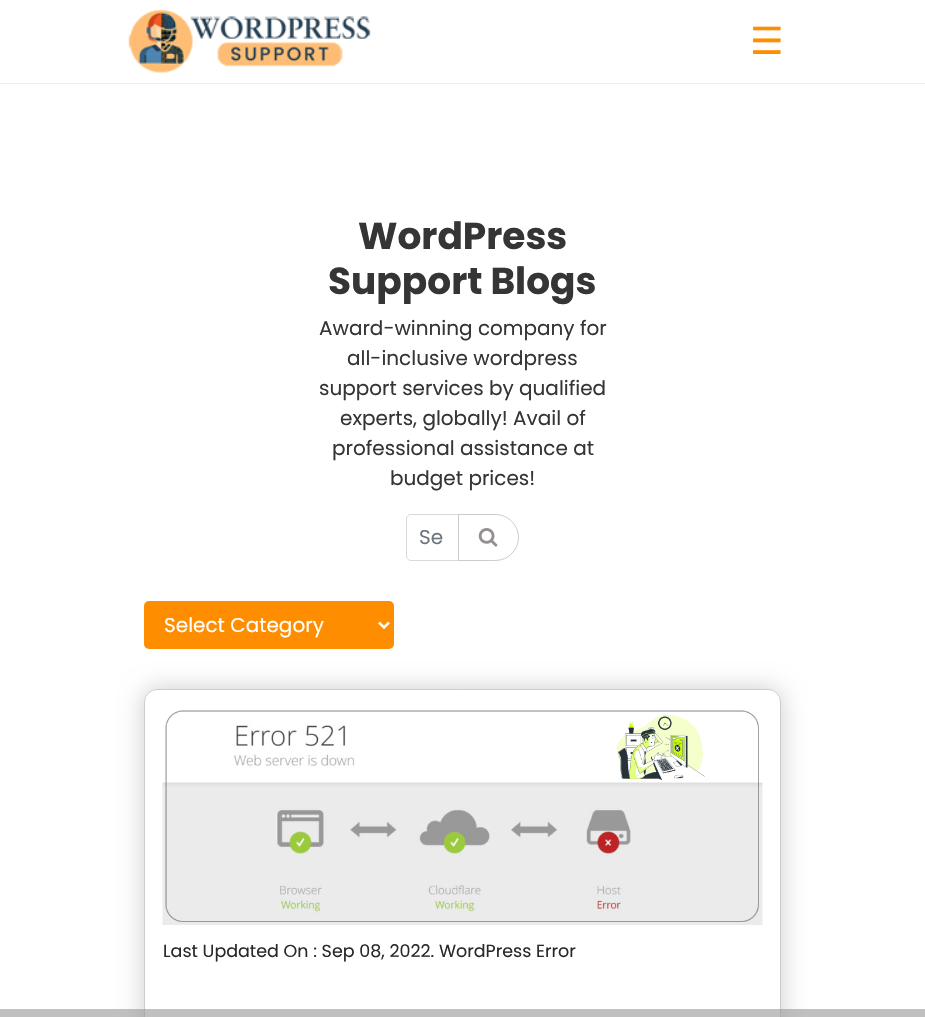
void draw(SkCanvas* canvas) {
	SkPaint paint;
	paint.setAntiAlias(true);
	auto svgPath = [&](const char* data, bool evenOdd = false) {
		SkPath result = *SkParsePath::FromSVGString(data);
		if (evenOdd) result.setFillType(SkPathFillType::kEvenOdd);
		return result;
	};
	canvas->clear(0xffffffff);
	paint.setColor(0xffededf2);
	canvas->drawRect(SkRect::MakeXYWH(0, 83, 925, 1), paint);
	canvas->drawImageRect(SkImages::DeferredFromEncodedData(SkData::MakeFromFileName("img1.png")), SkRect::MakeXYWH(128, 9, 243, 64), SkSamplingOptions());
	SkFont f1(fontMgr->matchFamilyStyle("DejaVu Sans", SkFontStyle::Normal()), 37.5);
	f1.setSubpixel(true);
	paint.setColor(0xffff8d00);
	canvas->drawString("☰", 750, 54, f1, paint);
	SkFont f2(fontMgr->matchFamilyStyle("Poppins", SkFontStyle::Bold()), 37.5);
	f2.setSubpixel(true);
	paint.setColor(0xff353535);
	canvas->drawString("WordPress", 358, 249, f2, paint);
	canvas->drawString("Support Blogs", 328, 294, f2, paint);
	SkFont f3(fontMgr->matchFamilyStyle("Poppins", SkFontStyle::Normal()), 20);
	f3.setSubpixel(true);
	canvas->drawString("Award-winning company for", 319, 335, f3, paint);
	canvas->drawString("all-inclusive wordpress", 347, 365, f3, paint);
	canvas->drawString("support services by qualified", 319, 395, f3, paint);
	canvas->drawString("experts, globally! Avail of", 340, 425, f3, paint);
	canvas->drawString("professional assistance at", 332, 455, f3, paint);
	canvas->drawString("budget prices!", 390, 485, f3, paint);
	paint.setStroke(true);
	paint.setStrokeWidth(1);
	paint.setColor(0xffd9d9d9);
	canvas->drawPath(svgPath("M411 514.5H458.5V560.5H411C408.5 560.5 406.5 558.5 406.5 556V519C406.5 516.5 408.5 514.5 411 514.5Z"), paint);
	paint.setStroke(false);
	paint.setColor(0xff6c757d);
	canvas->drawString("Se", 419, 544, f3, paint);
	paint.setStroke(true);
	paint.setColor(0xffcccccc);
	canvas->drawPath(svgPath("M458.5 514.5H495.5C508 514.5 518.5 525 518.5 537.5C518.5 550 508 560.5 495.5 560.5H458.5Z"), paint);
	canvas->drawImageRect(SkImages::DeferredFromEncodedData(SkData::MakeFromFileName("img2.png")), SkRect::MakeXYWH(478, 528, 20, 19), SkSamplingOptions());
	paint.setStroke(false);
	paint.setColor(0xffff8d00);
	canvas->drawRoundRect(SkRect::MakeXYWH(144, 601, 250, 48), 5, 5, paint);
	paint.setStroke(true);
	paint.setStrokeWidth(2.5);
	paint.setColor(0xffffffff);
	canvas->drawPath(svgPath("M379 622.5L384 627.5L389 622.5"), paint);
	paint.setStroke(false);
	canvas->drawString("Select Category", 164, 632, f3, paint);
	canvas->save();
	canvas->clipPath(svgPath("M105 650H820V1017H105ZM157 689H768C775 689 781 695 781 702V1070C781 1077 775 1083 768 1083H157C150 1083 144 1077 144 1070V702C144 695 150 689 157 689Z", true), true);
	paint.setColor(0xffcccccc);
	paint.setMaskFilter(SkMaskFilter::MakeBlur(kNormal_SkBlurStyle, 12.5));
	canvas->drawRoundRect(SkRect::MakeXYWH(144, 689, 637, 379), 13, 13, paint);
	paint.setMaskFilter(nullptr);
	canvas->restore();
	paint.setStroke(true);
	paint.setStrokeWidth(1);
	canvas->drawRoundRect(SkRect::MakeXYWH(144.5, 689.5, 636, 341), 12.5, 12.5, paint);
	canvas->drawImageRect(SkImages::DeferredFromEncodedData(SkData::MakeFromFileName("img3.png")), SkRect::MakeXYWH(162, 710, 601, 215), SkSamplingOptions());
	SkFont f4(fontMgr->matchFamilyStyle("Poppins", SkFontStyle::Normal()), 17.5);
	f4.setSubpixel(true);
	paint.setStroke(false);
	paint.setColor(0xff282828);
	canvas->drawString("Last Updated On : Sep 08, 2022. WordPress Error", 163, 957, f4, paint);
	paint.setColor(0x99969696);
	canvas->drawRect(SkRect::MakeXYWH(0, 1009, 925, 8), paint);
}
